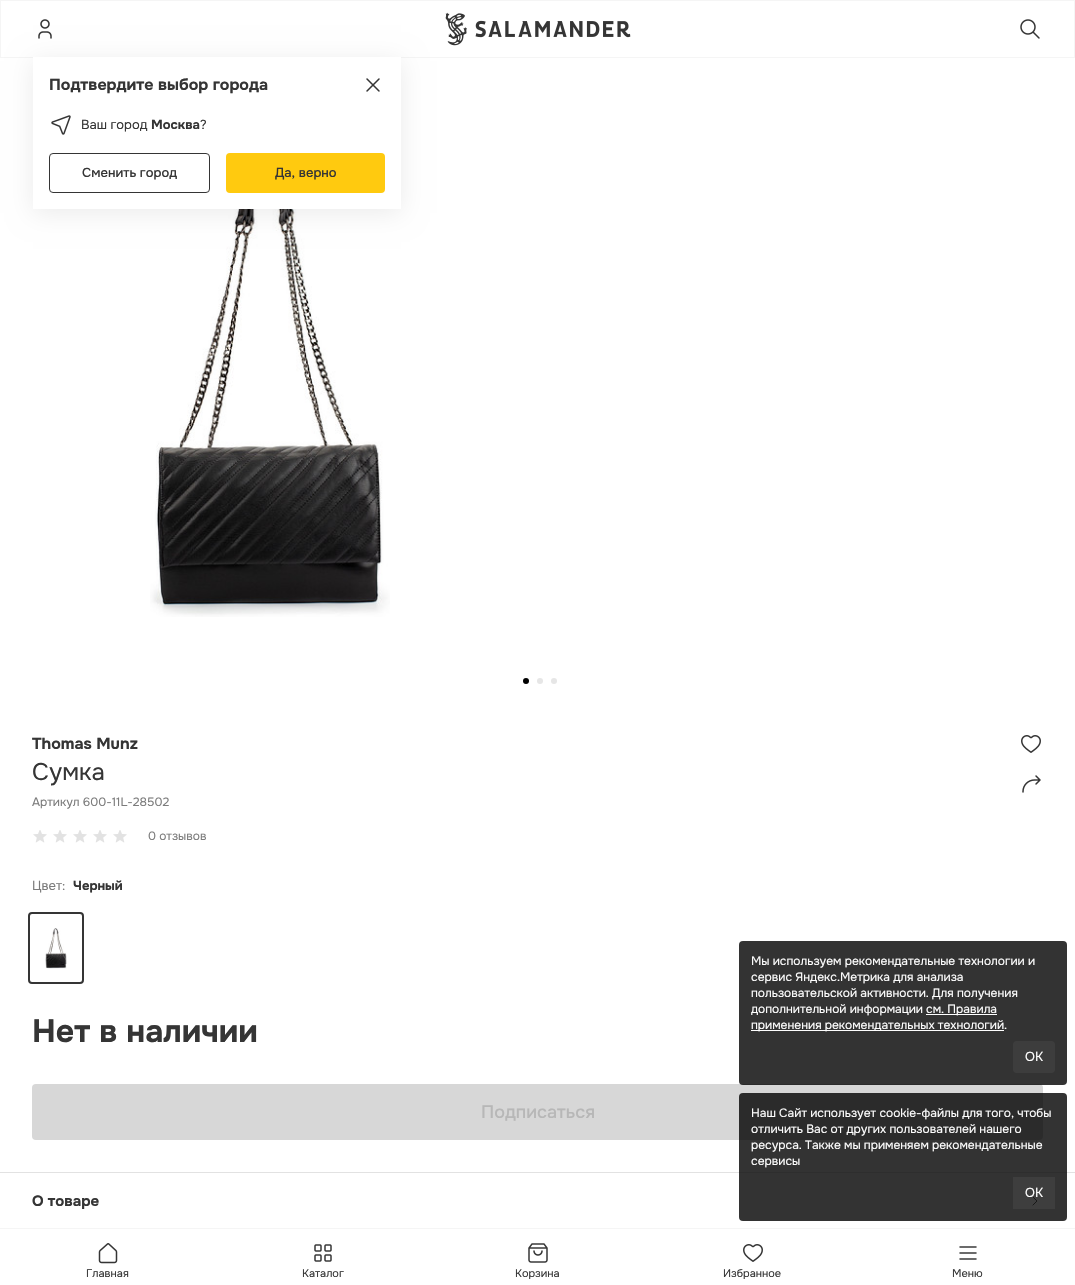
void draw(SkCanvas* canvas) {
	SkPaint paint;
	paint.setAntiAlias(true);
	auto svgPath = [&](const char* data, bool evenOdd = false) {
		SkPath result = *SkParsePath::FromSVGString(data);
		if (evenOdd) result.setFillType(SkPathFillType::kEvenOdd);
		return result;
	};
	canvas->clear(0xffffffff);
	paint.setStroke(true);
	paint.setStrokeWidth(1);
	paint.setColor(0xfff5f5f5);
	canvas->drawRect(SkRect::MakeXYWH(0.5, 0.5, 1074, 57), paint);
	canvas->drawImageRect(SkImages::DeferredFromEncodedData(SkData::MakeFromFileName("img1.png")), SkRect::MakeXYWH(445, 12, 186, 34), SkSamplingOptions());
	canvas->drawImageRect(SkImages::DeferredFromEncodedData(SkData::MakeFromFileName("img2.png")), SkRect::MakeXYWH(1020, 19, 20, 20), SkSamplingOptions());
	canvas->drawImageRect(SkImages::DeferredFromEncodedData(SkData::MakeFromFileName("img3.png")), SkRect::MakeXYWH(38, 19, 14, 20), SkSamplingOptions());
	canvas->drawImageRect(SkImages::DeferredFromEncodedData(SkData::MakeFromFileName("img11.png")), SkRect::MakeXYWH(150, 209, 240, 408), SkSamplingOptions());
	paint.setStroke(false);
	paint.setColor(0x14000000);
	paint.setMaskFilter(SkMaskFilter::MakeBlur(kNormal_SkBlurStyle, 12));
	canvas->drawRect(SkRect::MakeXYWH(33, 61, 368, 152), paint);
	paint.setMaskFilter(nullptr);
	paint.setColor(0xffffffff);
	canvas->drawRect(SkRect::MakeXYWH(33, 57, 368, 152), paint);
	SkFont f1(fontMgr->matchFamilyStyle("Onest", SkFontStyle::Bold()), 16);
	f1.setSubpixel(true);
	paint.setColor(0xff353535);
	canvas->drawString("Подтвердите выбор города", 49, 90, f1, paint);
	canvas->drawImageRect(SkImages::DeferredFromEncodedData(SkData::MakeFromFileName("img4.png")), SkRect::MakeXYWH(366, 78, 14, 14), SkSamplingOptions());
	canvas->drawImageRect(SkImages::DeferredFromEncodedData(SkData::MakeFromFileName("img5.png")), SkRect::MakeXYWH(51, 115, 20, 20), SkSamplingOptions());
	SkFont f2(fontMgr->matchFamilyStyle("Onest", SkFontStyle::Normal()), 13);
	f2.setSubpixel(true);
	canvas->drawString("Ваш город", 81, 129, f2, paint);
	SkFont f3(fontMgr->matchFamilyStyle("Onest", SkFontStyle::Bold()), 13);
	f3.setSubpixel(true);
	canvas->drawString("Москва", 151, 129, f3, paint);
	canvas->drawString("?", 200, 129, f2, paint);
	paint.setStroke(true);
	canvas->drawRoundRect(SkRect::MakeXYWH(49.5, 153.5, 160, 39), 3.5, 3.5, paint);
	SkFont f4(fontMgr->matchFamilyStyle("Onest", SkFontStyle(500, SkFontStyle::kNormal_Width, SkFontStyle::kUpright_Slant)), 13);
	f4.setSubpixel(true);
	paint.setStroke(false);
	canvas->drawString("Сменить город", 82, 177, f4, paint);
	paint.setColor(0xffffca0f);
	canvas->drawRoundRect(SkRect::MakeXYWH(226, 153, 159, 40), 4, 4, paint);
	paint.setColor(0xff353535);
	canvas->drawString("Да, верно", 275, 177, f4, paint);
	paint.setColor(0xfff5f5f5);
	canvas->drawRect(SkRect::MakeXYWH(0, 1228, 1075, 1), paint);
	canvas->drawImageRect(SkImages::DeferredFromEncodedData(SkData::MakeFromFileName("img6.png")), SkRect::MakeXYWH(98, 1243, 20, 21), SkSamplingOptions());
	SkFont f5(fontMgr->matchFamilyStyle("Onest", SkFontStyle::Normal()), 11);
	f5.setSubpixel(true);
	paint.setColor(0xff353535);
	canvas->drawString("Главная", 86, 1277, f5, paint);
	canvas->drawImageRect(SkImages::DeferredFromEncodedData(SkData::MakeFromFileName("img7.png")), SkRect::MakeXYWH(314, 1244, 18, 18), SkSamplingOptions());
	canvas->drawString("Каталог", 302, 1277, f5, paint);
	canvas->drawImageRect(SkImages::DeferredFromEncodedData(SkData::MakeFromFileName("img8.png")), SkRect::MakeXYWH(528, 1243, 20, 20), SkSamplingOptions());
	canvas->drawString("Корзина", 515, 1277, f5, paint);
	canvas->drawImageRect(SkImages::DeferredFromEncodedData(SkData::MakeFromFileName("img9.png")), SkRect::MakeXYWH(743, 1244, 20, 18), SkSamplingOptions());
	canvas->drawString("Избранное", 723, 1277, f5, paint);
	canvas->drawImageRect(SkImages::DeferredFromEncodedData(SkData::MakeFromFileName("img10.png")), SkRect::MakeXYWH(959, 1246, 18, 14), SkSamplingOptions());
	canvas->drawString("Меню", 952, 1277, f5, paint);
	paint.setColor(0xffe2e2e2);
	canvas->drawRect(SkRect::MakeXYWH(0, 1172, 1075, 1), paint);
	paint.setColor(0xff000000);
	canvas->drawCircle(526, 681, 3, paint);
	paint.setColor(0xffe6e6e6);
	canvas->drawCircle(540, 681, 3, paint);
	canvas->drawCircle(554, 681, 3, paint);
	paint.setColor(0xff353535);
	canvas->drawString("Thomas Munz", 32, 749, f1, paint);
	SkFont f6(fontMgr->matchFamilyStyle("Onest", SkFontStyle::Normal()), 24);
	f6.setSubpixel(true);
	canvas->drawString("Сумка", 32, 780, f6, paint);
	SkFont f7(fontMgr->matchFamilyStyle("Onest", SkFontStyle::Normal()), 12);
	f7.setSubpixel(true);
	paint.setColor(0xff7c7c7c);
	canvas->drawString("Артикул 600-11L-28502", 32, 806, f7, paint);
	canvas->drawImageRect(SkImages::DeferredFromEncodedData(SkData::MakeFromFileName("img9.png")), SkRect::MakeXYWH(1021, 735, 20, 18), SkSamplingOptions());
	canvas->drawImageRect(SkImages::DeferredFromEncodedData(SkData::MakeFromFileName("img12.png")), SkRect::MakeXYWH(1022, 775, 19, 18), SkSamplingOptions());
	canvas->drawImageRect(SkImages::DeferredFromEncodedData(SkData::MakeFromFileName("img13.png")), SkRect::MakeXYWH(33, 830, 14, 13), SkSamplingOptions());
	canvas->drawImageRect(SkImages::DeferredFromEncodedData(SkData::MakeFromFileName("img13.png")), SkRect::MakeXYWH(53, 830, 14, 13), SkSamplingOptions());
	canvas->drawImageRect(SkImages::DeferredFromEncodedData(SkData::MakeFromFileName("img13.png")), SkRect::MakeXYWH(73, 830, 14, 13), SkSamplingOptions());
	canvas->drawImageRect(SkImages::DeferredFromEncodedData(SkData::MakeFromFileName("img13.png")), SkRect::MakeXYWH(93, 830, 14, 13), SkSamplingOptions());
	canvas->drawImageRect(SkImages::DeferredFromEncodedData(SkData::MakeFromFileName("img13.png")), SkRect::MakeXYWH(113, 830, 14, 13), SkSamplingOptions());
	canvas->drawString("0 отзывов", 148, 840, f7, paint);
	canvas->drawString("Цвет:", 32, 890, f2, paint);
	paint.setColor(0xff353535);
	canvas->drawString("Черный", 73, 890, f3, paint);
	paint.setStroke(true);
	paint.setStrokeWidth(2);
	canvas->drawRoundRect(SkRect::MakeXYWH(29, 913, 54, 70), 3, 3, paint);
	canvas->drawImageRect(SkImages::DeferredFromEncodedData(SkData::MakeFromFileName("img14.png")), SkRect::MakeXYWH(45, 928, 22, 41), SkSamplingOptions());
	SkFont f8(fontMgr->matchFamilyStyle("Onest", SkFontStyle::Bold()), 32);
	f8.setSubpixel(true);
	paint.setStroke(false);
	canvas->drawString("Нет в наличии", 32, 1042, f8, paint);
	paint.setColor(0xffd7d7d7);
	canvas->drawRoundRect(SkRect::MakeXYWH(32, 1084, 1011, 56), 4, 4, paint);
	SkFont f9(fontMgr->matchFamilyStyle("Onest", SkFontStyle(500, SkFontStyle::kNormal_Width, SkFontStyle::kUpright_Slant)), 18);
	f9.setSubpixel(true);
	paint.setColor(0xffb7b7b7);
	canvas->drawString("Подписаться", 481, 1118, f9, paint);
	SkFont f10(fontMgr->matchFamilyStyle("Onest", SkFontStyle::Bold()), 15);
	f10.setSubpixel(true);
	paint.setColor(0xff353535);
	canvas->drawString("О товаре", 32, 1206, f10, paint);
	paint.setStroke(true);
	paint.setStrokeWidth(1);
	paint.setStrokeCap(SkPaint::kRound_Cap);
	paint.setStrokeJoin(SkPaint::kRound_Join);
	canvas->drawPath(svgPath("M1033 1205L1037 1201L1033 1197"), paint);
	paint.setStroke(false);
	paint.setColor(0xcc000000);
	canvas->drawRoundRect(SkRect::MakeXYWH(739, 941, 328, 144), 4, 4, paint);
	paint.setColor(0xffffffff);
	canvas->drawString("Мы используем рекомендательные технологии и", 751, 965, f7, paint);
	canvas->drawString("сервис Яндекс.Метрика для анализа", 751, 981, f7, paint);
	canvas->drawString("пользовательской активности. Для получения", 751, 997, f7, paint);
	canvas->drawString("дополнительной информации", 751, 1013, f7, paint);
	canvas->drawRect(SkRect::MakeXYWH(926, 1014, 71, 1), paint);
	canvas->drawString("см. Правила", 926, 1013, f7, paint);
	canvas->drawRect(SkRect::MakeXYWH(751, 1030, 253, 1), paint);
	canvas->drawString("применения рекомендательных технологий.", 751, 1029, f7, paint);
	paint.setColor(0xff3d3d3d);
	canvas->drawRoundRect(SkRect::MakeXYWH(1013, 1041, 42, 32), 4, 4, paint);
	paint.setColor(0xffffffff);
	canvas->drawString("OK", 1025, 1061, f2, paint);
	paint.setColor(0xcc000000);
	canvas->drawRoundRect(SkRect::MakeXYWH(739, 1093, 328, 128), 4, 4, paint);
	paint.setColor(0xffffffff);
	canvas->drawString("Наш Сайт использует cookie-файлы для того, чтобы", 751, 1117, f7, paint);
	canvas->drawString("отличить Вас от других пользователей нашего", 751, 1133, f7, paint);
	canvas->drawString("ресурса. Также мы применяем рекомендательные", 751, 1149, f7, paint);
	canvas->drawString("сервисы", 751, 1165, f7, paint);
	paint.setColor(0x0dffffff);
	canvas->drawRect(SkRect::MakeXYWH(1013, 1177, 42, 32), paint);
	paint.setColor(0xffffffff);
	canvas->drawString("OK", 1025, 1197, f2, paint);
}
